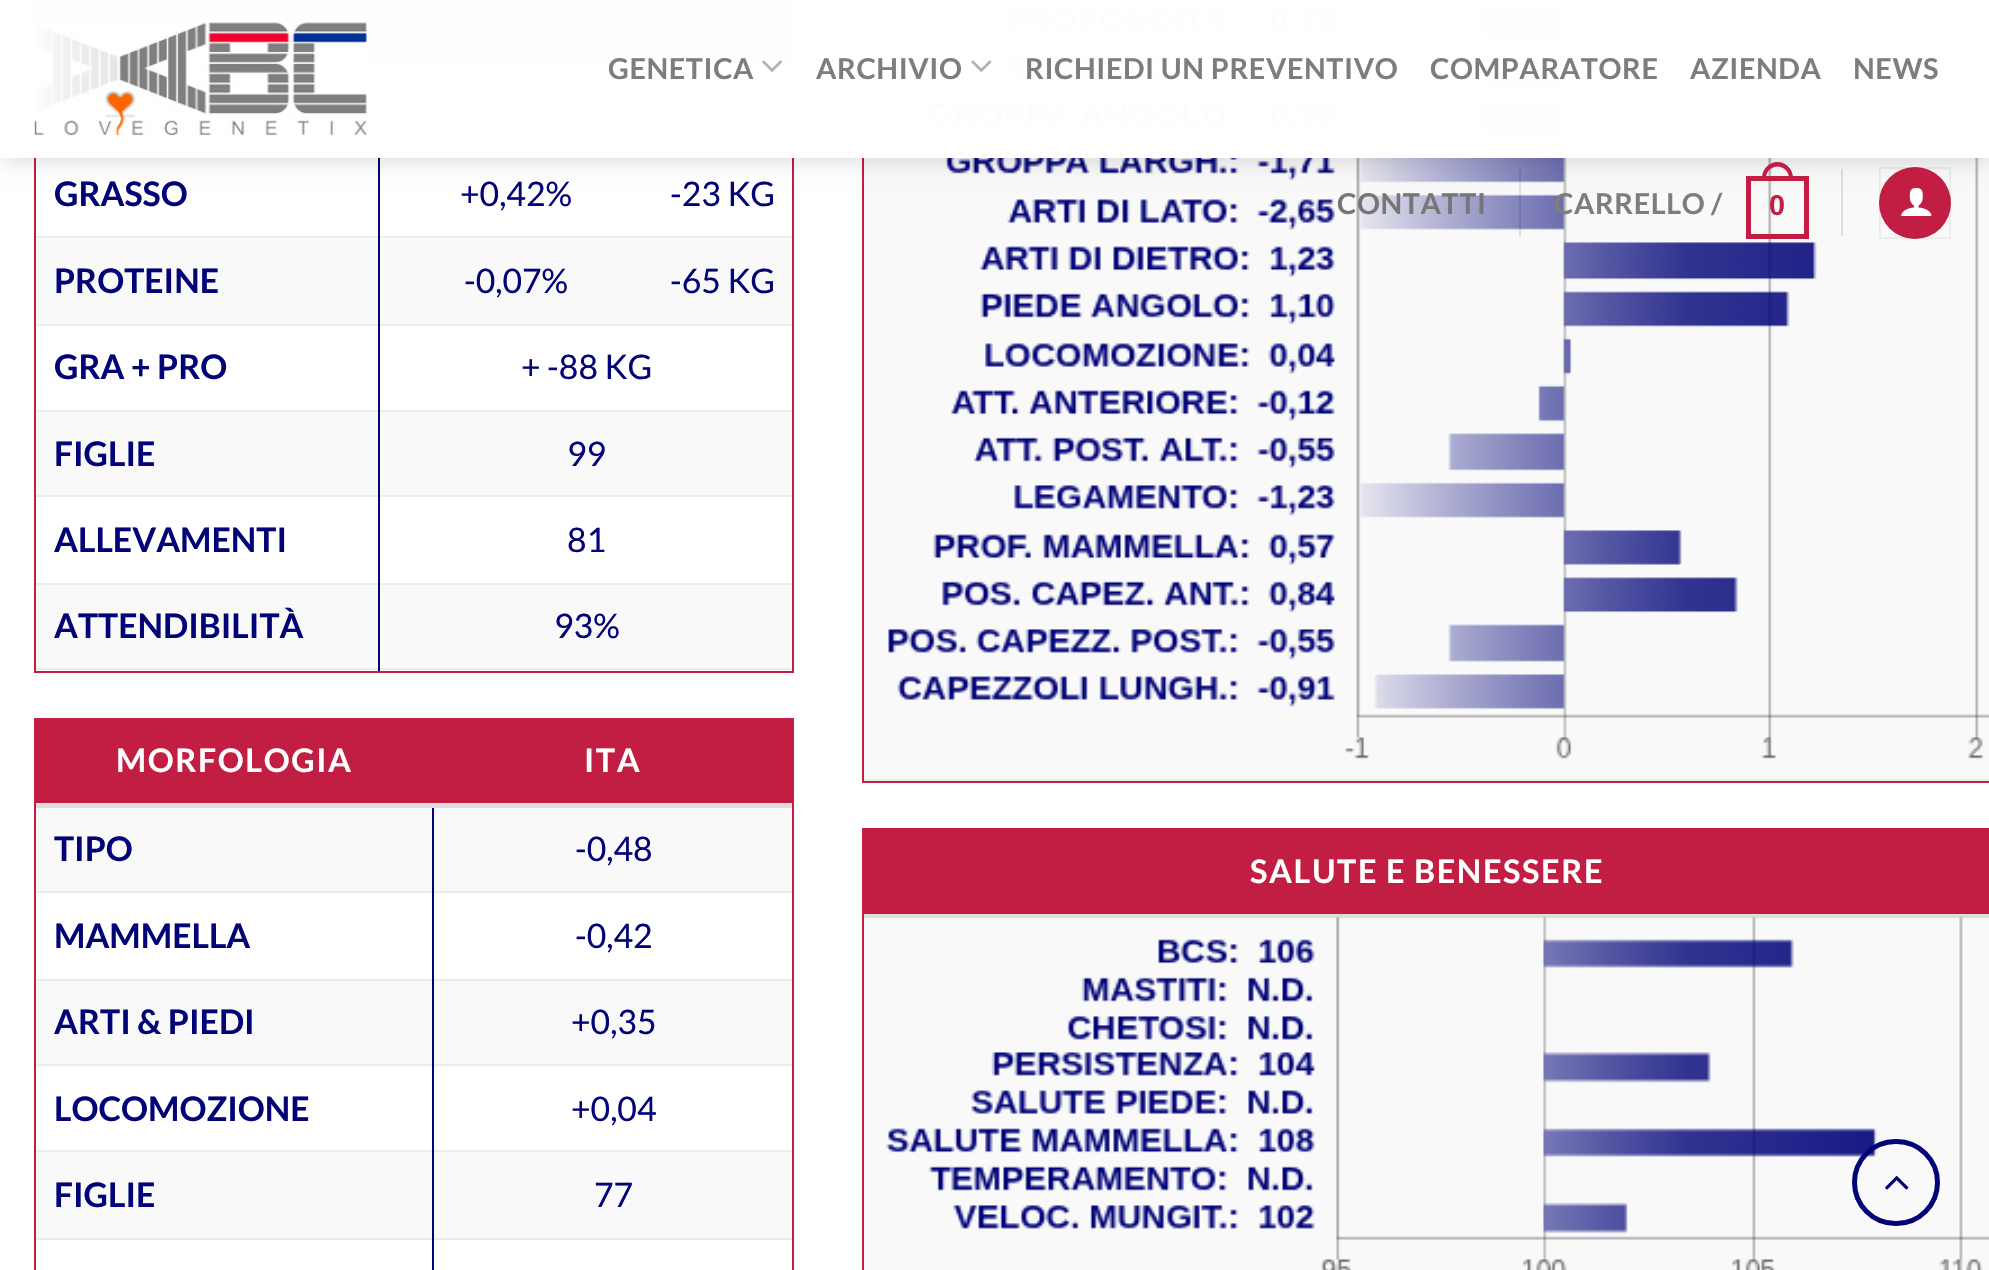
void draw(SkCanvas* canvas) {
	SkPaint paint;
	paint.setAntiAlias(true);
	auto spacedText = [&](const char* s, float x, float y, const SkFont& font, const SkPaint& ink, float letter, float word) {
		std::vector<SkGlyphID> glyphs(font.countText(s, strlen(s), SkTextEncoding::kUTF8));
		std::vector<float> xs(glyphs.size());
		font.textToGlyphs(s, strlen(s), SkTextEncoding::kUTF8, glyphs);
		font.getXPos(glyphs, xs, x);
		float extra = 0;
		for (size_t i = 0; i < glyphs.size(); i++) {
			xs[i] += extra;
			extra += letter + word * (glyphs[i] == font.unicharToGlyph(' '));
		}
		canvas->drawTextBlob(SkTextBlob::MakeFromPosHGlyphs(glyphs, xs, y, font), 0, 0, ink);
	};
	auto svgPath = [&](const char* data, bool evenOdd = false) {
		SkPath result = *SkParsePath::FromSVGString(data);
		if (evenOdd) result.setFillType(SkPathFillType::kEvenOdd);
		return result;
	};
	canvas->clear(0xffffffff);
	paint.setStroke(true);
	paint.setStrokeWidth(2);
	paint.setColor(0xffc21d43);
	canvas->drawRect(SkRect::MakeXYWH(35, -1, 758, 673), paint);
	paint.setStroke(false);
	canvas->drawRect(SkRect::MakeXYWH(36, 0, 756, 61), paint);
	paint.setColor(0xffdddddd);
	canvas->drawRect(SkRect::MakeXYWH(365, 61, 427, 4), paint);
	paint.setColor(0xfff9f9f9);
	canvas->drawRect(SkRect::MakeXYWH(36, 65, 756, 86), paint);
	paint.setColor(0xffececec);
	canvas->drawRect(SkRect::MakeXYWH(36, 151, 756, 2), paint);
	paint.setColor(0xff010377);
	canvas->drawRect(SkRect::MakeXYWH(378, 65, 2, 88), paint);
	paint.setColor(0xffececec);
	canvas->drawRect(SkRect::MakeXYWH(36, 236, 756, 2), paint);
	paint.setColor(0xff010377);
	canvas->drawRect(SkRect::MakeXYWH(378, 153, 2, 86), paint);
	paint.setStroke(true);
	paint.setColor(0xffc21d43);
	canvas->drawRect(SkRect::MakeXYWH(863, -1, 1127, 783), paint);
	paint.setStroke(false);
	paint.setColor(0xfff9f9f9);
	canvas->drawRect(SkRect::MakeXYWH(864, 0, 1125, 779), paint);
	canvas->drawImageRect(SkImages::DeferredFromEncodedData(SkData::MakeFromFileName("img5.png")), SkRect::MakeXYWH(888, 0, 1101, 759), SkSamplingOptions());
	canvas->save();
	canvas->clipPath(svgPath("M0 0H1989V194H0ZM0 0H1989V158H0Z", true), true);
	paint.setColor(0x26000000);
	paint.setMaskFilter(SkMaskFilter::MakeBlur(kNormal_SkBlurStyle, 11));
	canvas->drawRect(SkRect::MakeXYWH(2, 2, 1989, 158), paint);
	paint.setMaskFilter(nullptr);
	canvas->restore();
	paint.setColor(0xe6ffffff);
	canvas->drawRect(SkRect::MakeXYWH(0, 0, 1989, 158), paint);
	canvas->drawRect(SkRect::MakeXYWH(34, 0, 1944, 158), paint);
	canvas->drawImageRect(SkImages::DeferredFromEncodedData(SkData::MakeFromFileName("img1.png")), SkRect::MakeXYWH(34, 22, 333, 114), SkSamplingOptions());
	SkFont f1(fontMgr->matchFamilyStyle("Lato", SkFontStyle::Bold()), 28.75);
	f1.setSubpixel(true);
	paint.setColor(0xff7d7d7d);
	spacedText("GENETICA", 608, 79, f1, paint, 0.6, 0);
	canvas->drawImageRect(SkImages::DeferredFromEncodedData(SkData::MakeFromFileName("img2.png")), SkRect::MakeXYWH(762, 60, 20, 12), SkSamplingOptions());
	spacedText("ARCHIVIO", 816, 79, f1, paint, 0.6, 0);
	canvas->drawImageRect(SkImages::DeferredFromEncodedData(SkData::MakeFromFileName("img3.png")), SkRect::MakeXYWH(971, 60, 21, 12), SkSamplingOptions());
	spacedText("RICHIEDI UN PREVENTIVO", 1025, 79, f1, paint, 0.6, 0);
	spacedText("COMPARATORE", 1430, 79, f1, paint, 0.6, 0);
	spacedText("AZIENDA", 1690, 79, f1, paint, 0.6, 0);
	spacedText("NEWS", 1853, 79, f1, paint, 0.6, 0);
	paint.setColor(0xff767679);
	spacedText("CONTATTI", 1337, 214, f1, paint, 0.6, 0);
	paint.setColor(0x1a000000);
	canvas->drawRect(SkRect::MakeXYWH(1519, 169, 2, 67), paint);
	paint.setColor(0xff7d7d7d);
	spacedText("CARRELLO", 1554, 214, f1, paint, 0.6, 0);
	spacedText("/", 1711, 214, f1, paint, 0.6, 0);
	paint.setStroke(true);
	paint.setStrokeWidth(5);
	paint.setColor(0xffc21d43);
	canvas->drawRect(SkRect::MakeXYWH(1748.5, 178.5, 58, 58), paint);
	paint.setStroke(false);
	canvas->drawPath(svgPath("M1777.5 162C1786 162 1793 169 1793 178V180H1762V178C1762 169 1769 162 1777.5 162ZM1777.5 166.5C1783.5 166.5 1789 171.5 1789 178V180H1766V178C1766 171.5 1771.5 166.5 1777.5 166.5Z", true), paint);
	SkFont f2(fontMgr->matchFamilyStyle("Liberation Sans", SkFontStyle::Bold()), 28.75);
	f2.setSubpixel(true);
	spacedText("0", 1769, 215, f2, paint, 0.6, 0);
	paint.setColor(0x1a000000);
	canvas->drawRect(SkRect::MakeXYWH(1841, 169, 2, 67), paint);
	paint.setColor(0xffc21d43);
	canvas->drawCircle(1915, 203, 36, paint);
	paint.setStroke(true);
	paint.setStrokeWidth(2);
	paint.setColor(0x0d000000);
	canvas->drawRect(SkRect::MakeXYWH(1880, 168, 70, 70), paint);
	canvas->drawImageRect(SkImages::DeferredFromEncodedData(SkData::MakeFromFileName("img4.png")), SkRect::MakeXYWH(1901, 187, 31, 29), SkSamplingOptions());
	SkFont f3(fontMgr->matchFamilyStyle("Lato", SkFontStyle::Bold()), 33.75);
	f3.setSubpixel(true);
	paint.setStroke(false);
	paint.setColor(0xff010377);
	canvas->drawString("GRASSO", 54, 206, f3, paint);
	SkFont f4(fontMgr->matchFamilyStyle("Lato", SkFontStyle::Normal()), 33.75);
	f4.setSubpixel(true);
	canvas->drawString("+0,42%", 460, 206, f4, paint);
	canvas->drawString("-23 KG", 670, 206, f4, paint);
	paint.setColor(0xfff9f9f9);
	canvas->drawRect(SkRect::MakeXYWH(36, 239, 756, 85), paint);
	paint.setColor(0xffececec);
	canvas->drawRect(SkRect::MakeXYWH(36, 324, 756, 2), paint);
	paint.setColor(0xff010377);
	canvas->drawString("PROTEINE", 54, 293, f3, paint);
	canvas->drawRect(SkRect::MakeXYWH(378, 239, 2, 87), paint);
	canvas->drawString("-0,07%", 464, 293, f4, paint);
	canvas->drawString("-65 KG", 670, 293, f4, paint);
	paint.setColor(0xffececec);
	canvas->drawRect(SkRect::MakeXYWH(36, 410, 756, 2), paint);
	paint.setColor(0xff010377);
	canvas->drawString("GRA + PRO", 54, 379, f3, paint);
	canvas->drawRect(SkRect::MakeXYWH(378, 326, 2, 86), paint);
	canvas->drawString("+ -88 KG", 521, 379, f4, paint);
	paint.setColor(0xfff9f9f9);
	canvas->drawRect(SkRect::MakeXYWH(36, 412, 756, 83), paint);
	paint.setColor(0xffececec);
	canvas->drawRect(SkRect::MakeXYWH(36, 495, 756, 2), paint);
	paint.setColor(0xff010377);
	canvas->drawString("FIGLIE", 54, 466, f3, paint);
	canvas->drawRect(SkRect::MakeXYWH(378, 412, 2, 85), paint);
	canvas->drawString("99", 567, 466, f4, paint);
	paint.setColor(0xffececec);
	canvas->drawRect(SkRect::MakeXYWH(36, 583, 756, 2), paint);
	paint.setColor(0xff010377);
	canvas->drawString("ALLEVAMENTI", 54, 552, f3, paint);
	canvas->drawRect(SkRect::MakeXYWH(378, 497, 2, 88), paint);
	canvas->drawString("81", 567, 552, f4, paint);
	paint.setColor(0xfff9f9f9);
	canvas->drawRect(SkRect::MakeXYWH(36, 585, 756, 86), paint);
	paint.setColor(0xffececec);
	canvas->drawRect(SkRect::MakeXYWH(36, 668, 756, 2), paint);
	paint.setColor(0xff010377);
	canvas->drawString("ATTENDIBILITÀ", 54, 638, f3, paint);
	canvas->drawRect(SkRect::MakeXYWH(378, 585, 2, 86), paint);
	canvas->drawString("93%", 554, 638, f4, paint);
	paint.setStroke(true);
	paint.setColor(0xffc21d43);
	canvas->drawRect(SkRect::MakeXYWH(35, 719, 758, 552), paint);
	paint.setStroke(false);
	canvas->drawRect(SkRect::MakeXYWH(36, 720, 756, 83), paint);
	paint.setColor(0xffdddddd);
	canvas->drawRect(SkRect::MakeXYWH(36, 803, 756, 5), paint);
	SkFont f5(fontMgr->matchFamilyStyle("Lato", SkFontStyle::Bold()), 32.4);
	f5.setSubpixel(true);
	paint.setColor(0xffffffff);
	spacedText("MORFOLOGIA", 116, 772, f5, paint, 1.6, 0);
	spacedText("ITA", 584, 772, f5, paint, 1.6, 0);
	paint.setColor(0xfff9f9f9);
	canvas->drawRect(SkRect::MakeXYWH(36, 808, 756, 83), paint);
	paint.setColor(0xffececec);
	canvas->drawRect(SkRect::MakeXYWH(36, 891, 756, 2), paint);
	paint.setColor(0xff010377);
	canvas->drawString("TIPO", 54, 861, f3, paint);
	canvas->drawRect(SkRect::MakeXYWH(432, 808, 2, 85), paint);
	canvas->drawString("-0,48", 575, 861, f4, paint);
	paint.setColor(0xffececec);
	canvas->drawRect(SkRect::MakeXYWH(36, 979, 756, 2), paint);
	paint.setColor(0xff010377);
	canvas->drawString("MAMMELLA", 54, 948, f3, paint);
	canvas->drawRect(SkRect::MakeXYWH(432, 893, 2, 88), paint);
	canvas->drawString("-0,42", 575, 948, f4, paint);
	paint.setColor(0xfff9f9f9);
	canvas->drawRect(SkRect::MakeXYWH(36, 981, 756, 86), paint);
	paint.setColor(0xffececec);
	canvas->drawRect(SkRect::MakeXYWH(36, 1064, 756, 2), paint);
	paint.setColor(0xff010377);
	canvas->drawString("ARTI & PIEDI", 54, 1034, f3, paint);
	canvas->drawRect(SkRect::MakeXYWH(432, 981, 2, 86), paint);
	canvas->drawString("+0,35", 571, 1034, f4, paint);
	paint.setColor(0xffececec);
	canvas->drawRect(SkRect::MakeXYWH(36, 1150, 756, 2), paint);
	paint.setColor(0xff010377);
	canvas->drawString("LOCOMOZIONE", 54, 1121, f3, paint);
	canvas->drawRect(SkRect::MakeXYWH(432, 1067, 2, 85), paint);
	canvas->drawString("+0,04", 571, 1121, f4, paint);
	paint.setColor(0xfff9f9f9);
	canvas->drawRect(SkRect::MakeXYWH(36, 1152, 756, 86), paint);
	paint.setColor(0xffececec);
	canvas->drawRect(SkRect::MakeXYWH(36, 1238, 756, 2), paint);
	paint.setColor(0xff010377);
	canvas->drawString("FIGLIE", 54, 1207, f3, paint);
	canvas->drawRect(SkRect::MakeXYWH(432, 1152, 2, 118), paint);
	canvas->drawString("77", 594, 1207, f4, paint);
	paint.setColor(0xffececec);
	canvas->drawRect(SkRect::MakeXYWH(864, 779, 1125, 2), paint);
	paint.setStroke(true);
	paint.setColor(0xffc21d43);
	canvas->drawRect(SkRect::MakeXYWH(863, 829, 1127, 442), paint);
	paint.setStroke(false);
	canvas->drawRect(SkRect::MakeXYWH(864, 830, 1125, 84), paint);
	paint.setColor(0xffdddddd);
	canvas->drawRect(SkRect::MakeXYWH(864, 914, 1125, 4), paint);
	paint.setColor(0xffffffff);
	spacedText("SALUTE E BENESSERE", 1250, 883, f5, paint, 1.6, 0);
	paint.setColor(0xfff9f9f9);
	canvas->drawRect(SkRect::MakeXYWH(864, 918, 1125, 352), paint);
	canvas->drawImageRect(SkImages::DeferredFromEncodedData(SkData::MakeFromFileName("img6.png")), SkRect::MakeXYWH(886, 917, 1103, 353), SkSamplingOptions());
	paint.setStroke(true);
	paint.setStrokeWidth(5);
	paint.setColor(0xff010377);
	canvas->drawRoundRect(SkRect::MakeXYWH(1854.5, 1141.5, 83, 82), 41, 41, paint);
	canvas->drawImageRect(SkImages::DeferredFromEncodedData(SkData::MakeFromFileName("img7.png")), SkRect::MakeXYWH(1885, 1176, 24, 14), SkSamplingOptions());
}
